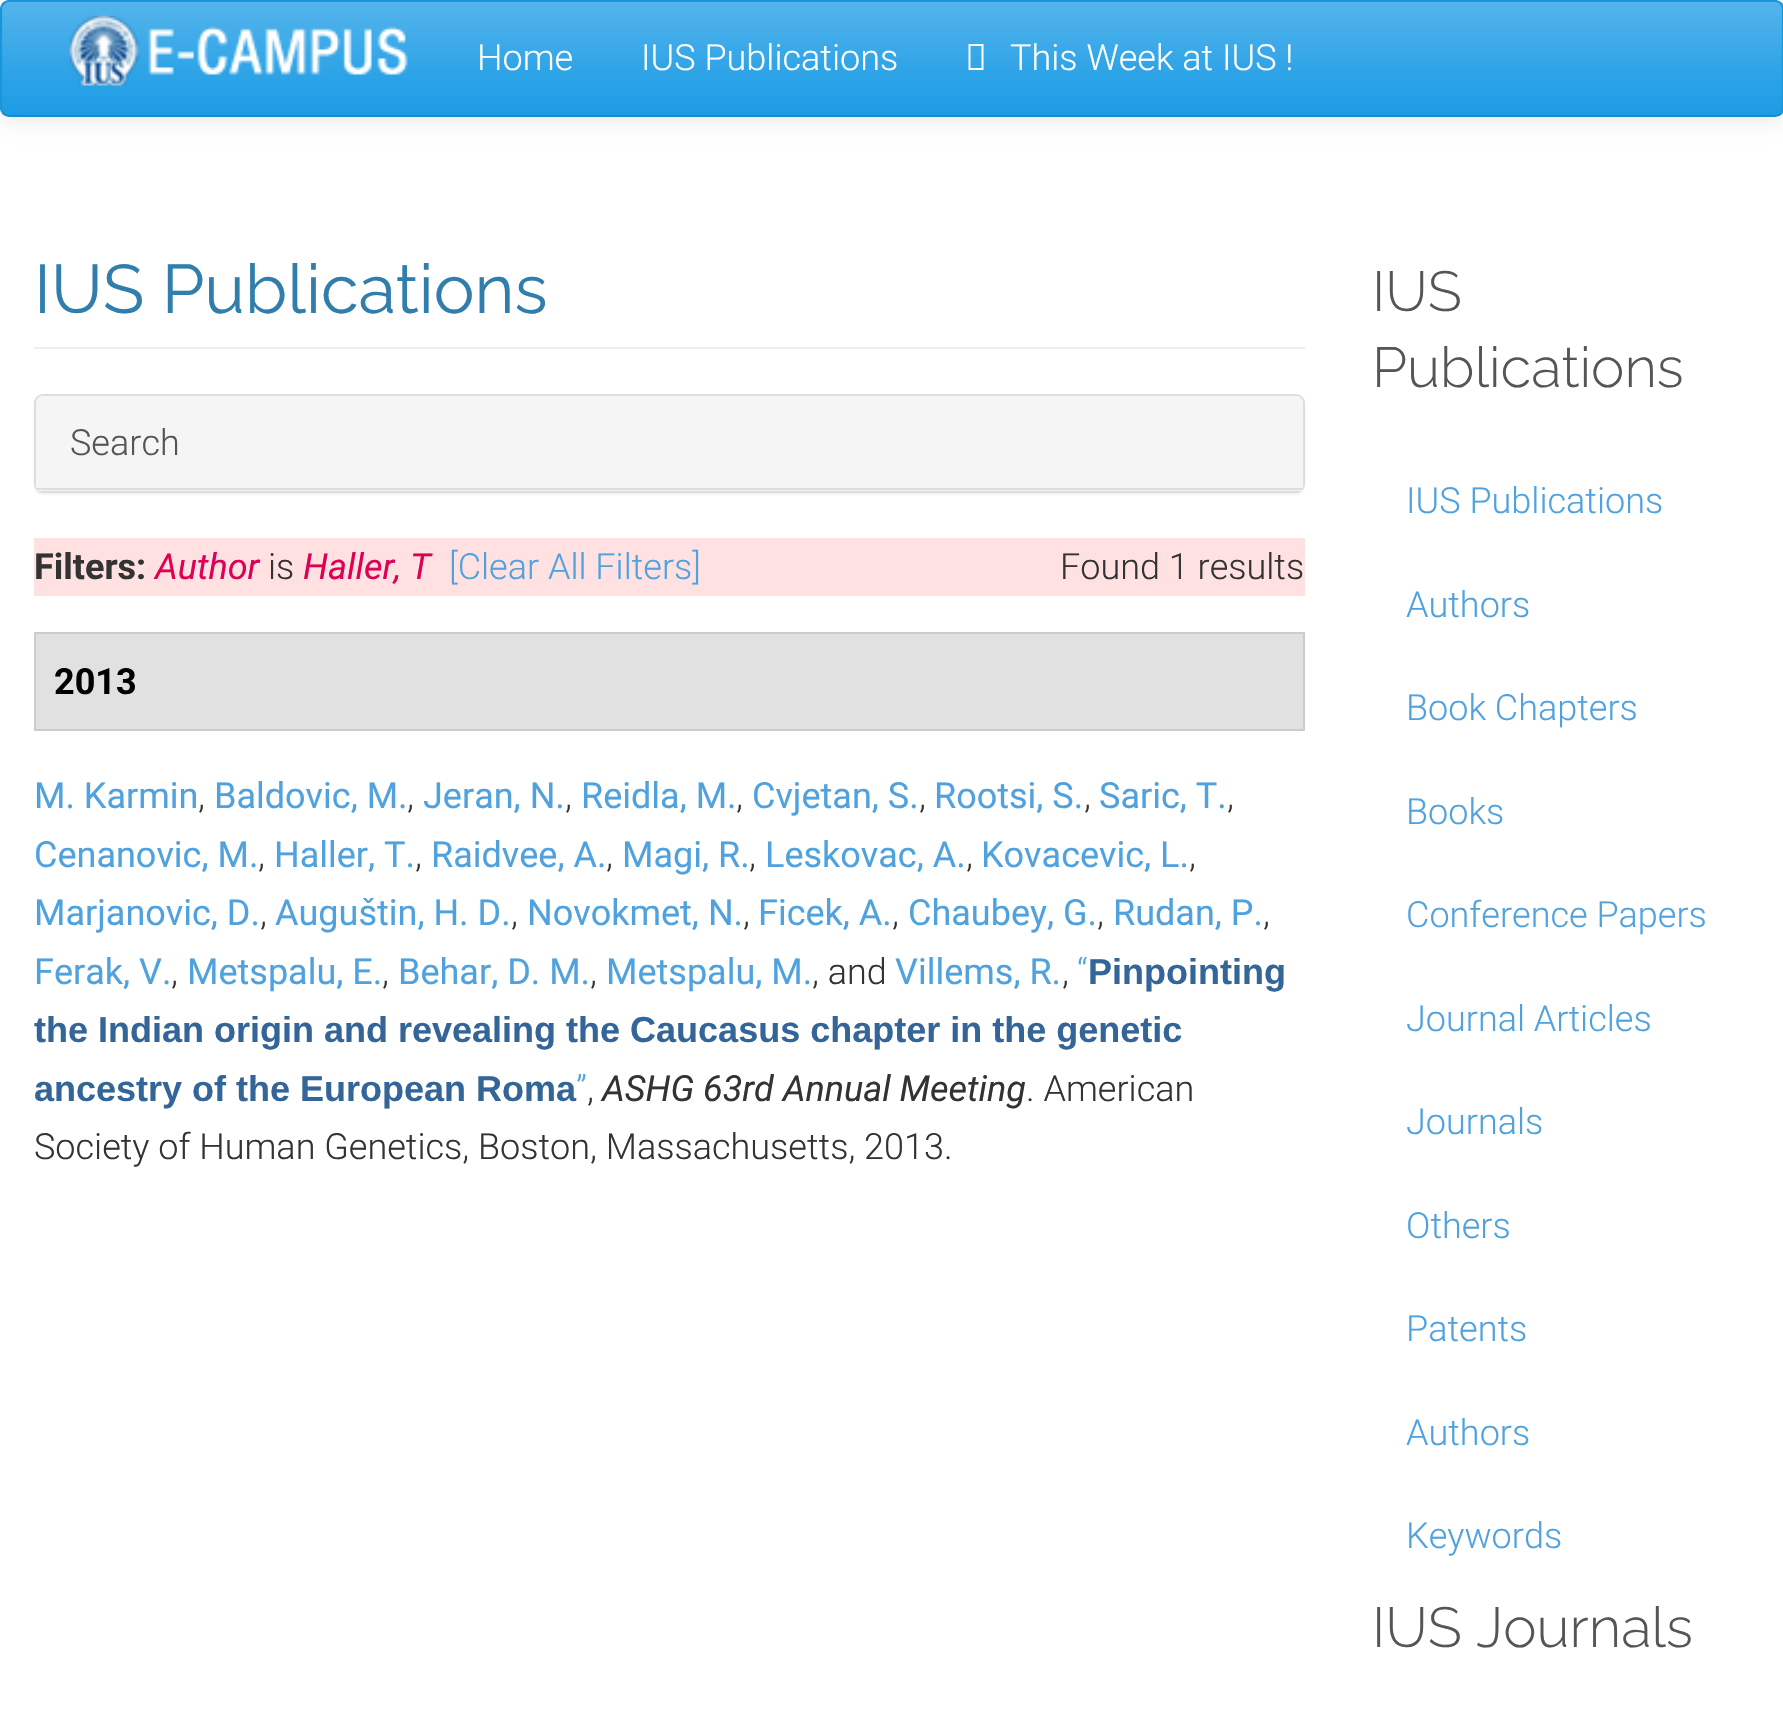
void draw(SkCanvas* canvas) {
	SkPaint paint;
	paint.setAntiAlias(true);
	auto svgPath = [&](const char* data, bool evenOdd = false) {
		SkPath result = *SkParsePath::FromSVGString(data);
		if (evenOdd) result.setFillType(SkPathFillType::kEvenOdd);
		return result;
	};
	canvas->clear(0xffffffff);
	paint.setColor(0x1a000000);
	paint.setMaskFilter(SkMaskFilter::MakeBlur(kNormal_SkBlurStyle, 11));
	canvas->drawRoundRect(SkRect::MakeXYWH(0, 2, 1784, 117), 9, 9, paint);
	paint.setMaskFilter(nullptr);
	canvas->save();
	canvas->clipPath(svgPath("M9 0H1775C1780 0 1784 4 1784 9V108C1784 113 1780 117 1775 117H9C4 117 0 113 0 108V9C0 4 4 0 9 0Z"), true);
	{
		const SkColor colors[] = {0xff54b4eb, 0xff2fa4e7, 0xff1d9ce5};
		const float stops[] = {0, 0.6, 1};
		const SkPoint ends[] = {{892, 2.2}, {892, 115}};
		paint.setShader(SkGradientShader::MakeLinear(ends, colors, stops, 3, SkTileMode::kClamp));
		paint.setAlpha(255);
	}
	canvas->drawRect(SkRect::MakeXYWH(2, 2, 1780, 113), paint);
	canvas->restore();
	paint.setStroke(true);
	paint.setStrokeWidth(2.2);
	paint.setShader(nullptr);
	paint.setColor(0xff178acc);
	canvas->drawPath(svgPath("M1781 113.5C1779.5 115 1777.5 116 1775 116H9C7 116 5 115 3.5 113.5"), paint);
	paint.setColor(0xff1995dc);
	canvas->drawPath(svgPath("M3.5 113.5C2 112 1 110 1 108V9C1 7 2 5 3.5 3.5C5 2 7 1 9 1H1775C1777.5 1 1779.5 2 1781 3.5C1782.5 5 1783 7 1783 9V108C1783 110 1782.5 112 1781 113.5"), paint);
	canvas->drawImageRect(SkImages::DeferredFromEncodedData(SkData::MakeFromFileName("img1.png")), SkRect::MakeXYWH(69, 15, 339, 71), SkSamplingOptions());
	SkFont f1(fontMgr->matchFamilyStyle("Roboto", SkFontStyle(300, SkFontStyle::kNormal_Width, SkFontStyle::kUpright_Slant)), 36);
	f1.setSubpixel(true);
	paint.setStroke(false);
	paint.setColor(0xffffffff);
	canvas->drawString("Home", 477, 70, f1, paint);
	canvas->drawString("IUS Publications", 641, 70, f1, paint);
	canvas->drawPath(svgPath("M968.5 70V44H983.5V70ZM970.5 68H981.5V46H970.5Z"), paint);
	canvas->drawString("This Week at IUS !", 1010, 70, f1, paint);
	paint.setColor(0xffeeeeee);
	canvas->drawRect(SkRect::MakeXYWH(34, 347, 1271, 2), paint);
	SkFont f2(fontMgr->matchFamilyStyle("Raleway", SkFontStyle::Normal()), 68.5);
	f2.setSubpixel(true);
	paint.setColor(0xff317eac);
	canvas->drawString("IUS Publications", 34, 313, f2, paint);
	paint.setColor(0x0d000000);
	paint.setMaskFilter(SkMaskFilter::MakeBlur(kNormal_SkBlurStyle, 1));
	canvas->drawRoundRect(SkRect::MakeXYWH(34, 396, 1271, 99), 9, 9, paint);
	paint.setMaskFilter(nullptr);
	paint.setStroke(true);
	paint.setStrokeWidth(2);
	paint.setColor(0xffdddddd);
	canvas->drawRoundRect(SkRect::MakeXYWH(35, 395, 1269, 97), 8, 8, paint);
	paint.setStroke(false);
	paint.setColor(0xfff5f5f5);
	canvas->drawPath(svgPath("M43 396H1296C1300 396 1303 399 1303 403V491H36V403C36 399 39 396 43 396Z"), paint);
	paint.setColor(0xffdddddd);
	canvas->drawRect(SkRect::MakeXYWH(36, 488, 1267, 2), paint);
	paint.setColor(0xff555555);
	canvas->drawString("Search", 70, 455, f1, paint);
	paint.setColor(0xffffe1e1);
	canvas->drawRect(SkRect::MakeXYWH(34, 538, 1271, 58), paint);
	SkFont f3(fontMgr->matchFamilyStyle("Roboto", SkFontStyle::Bold()), 36);
	f3.setSubpixel(true);
	paint.setColor(0xff333333);
	canvas->drawString("Filters:", 34, 579, f3, paint);
	SkFont f4(fontMgr->matchFamilyStyle("Roboto", SkFontStyle::Italic()), 36);
	f4.setSubpixel(true);
	paint.setColor(0xffdd0055);
	canvas->drawString("Author", 155, 579, f4, paint);
	paint.setColor(0xff333333);
	canvas->drawString("is", 268, 579, f1, paint);
	paint.setColor(0xffdd0055);
	canvas->drawString("Haller, T", 303, 579, f4, paint);
	paint.setColor(0xff50a2de);
	canvas->drawString("[Clear All Filters]", 449, 579, f1, paint);
	paint.setColor(0xff333333);
	canvas->drawString("Found 1 results", 1060, 579, f1, paint);
	paint.setColor(0xffe1e1e1);
	canvas->drawRect(SkRect::MakeXYWH(35, 633, 1269, 97), paint);
	paint.setStroke(true);
	paint.setColor(0xffcccccc);
	canvas->drawRect(SkRect::MakeXYWH(35, 633, 1269, 97), paint);
	paint.setStroke(false);
	paint.setColor(0xff000000);
	canvas->drawString("2013", 54, 694, f3, paint);
	SkFont f5(fontMgr->matchFamilyStyle("Roboto", SkFontStyle::Normal()), 36);
	f5.setSubpixel(true);
	paint.setColor(0xff50a2de);
	canvas->drawString("M. Karmin", 34, 808, f5, paint);
	paint.setColor(0xff333333);
	canvas->drawString(",", 198, 808, f1, paint);
	paint.setColor(0xff50a2de);
	canvas->drawString("Baldovic, M.", 214, 808, f5, paint);
	paint.setColor(0xff333333);
	canvas->drawString(",", 407, 808, f1, paint);
	paint.setColor(0xff50a2de);
	canvas->drawString("Jeran, N.", 423, 808, f5, paint);
	paint.setColor(0xff333333);
	canvas->drawString(",", 565, 808, f1, paint);
	paint.setColor(0xff50a2de);
	canvas->drawString("Reidla, M.", 581, 808, f5, paint);
	paint.setColor(0xff333333);
	canvas->drawString(",", 736, 808, f1, paint);
	paint.setColor(0xff50a2de);
	canvas->drawString("Cvjetan, S.", 752, 808, f5, paint);
	paint.setColor(0xff333333);
	canvas->drawString(",", 919, 808, f1, paint);
	paint.setColor(0xff50a2de);
	canvas->drawString("Rootsi, S.", 934, 808, f5, paint);
	paint.setColor(0xff333333);
	canvas->drawString(",", 1084, 808, f1, paint);
	paint.setColor(0xff50a2de);
	canvas->drawString("Saric, T.", 1099, 808, f5, paint);
	paint.setColor(0xff333333);
	canvas->drawString(",", 1227, 808, f1, paint);
	paint.setColor(0xff50a2de);
	canvas->drawString("Cenanovic, M.", 34, 867, f5, paint);
	paint.setColor(0xff333333);
	canvas->drawString(",", 258, 867, f1, paint);
	paint.setColor(0xff50a2de);
	canvas->drawString("Haller, T.", 274, 867, f5, paint);
	paint.setColor(0xff333333);
	canvas->drawString(",", 415, 867, f1, paint);
	paint.setColor(0xff50a2de);
	canvas->drawString("Raidvee, A.", 431, 867, f5, paint);
	paint.setColor(0xff333333);
	canvas->drawString(",", 606, 867, f1, paint);
	paint.setColor(0xff50a2de);
	canvas->drawString("Magi, R.", 622, 867, f5, paint);
	paint.setColor(0xff333333);
	canvas->drawString(",", 749, 867, f1, paint);
	paint.setColor(0xff50a2de);
	canvas->drawString("Leskovac, A.", 765, 867, f5, paint);
	paint.setColor(0xff333333);
	canvas->drawString(",", 966, 867, f1, paint);
	paint.setColor(0xff50a2de);
	canvas->drawString("Kovacevic, L.", 981, 867, f5, paint);
	paint.setColor(0xff333333);
	canvas->drawString(",", 1189, 867, f1, paint);
	paint.setColor(0xff50a2de);
	canvas->drawString("Marjanovic, D.", 34, 925, f5, paint);
	paint.setColor(0xff333333);
	canvas->drawString(",", 260, 925, f1, paint);
	paint.setColor(0xff50a2de);
	canvas->drawString("Auguštin, H. D.", 275, 925, f5, paint);
	paint.setColor(0xff333333);
	canvas->drawString(",", 511, 925, f1, paint);
	paint.setColor(0xff50a2de);
	canvas->drawString("Novokmet, N.", 527, 925, f5, paint);
	paint.setColor(0xff333333);
	canvas->drawString(",", 743, 925, f1, paint);
	paint.setColor(0xff50a2de);
	canvas->drawString("Ficek, A.", 758, 925, f5, paint);
	paint.setColor(0xff333333);
	canvas->drawString(",", 892, 925, f1, paint);
	paint.setColor(0xff50a2de);
	canvas->drawString("Chaubey, G.", 908, 925, f5, paint);
	paint.setColor(0xff333333);
	canvas->drawString(",", 1097, 925, f1, paint);
	paint.setColor(0xff50a2de);
	canvas->drawString("Rudan, P.", 1113, 925, f5, paint);
	paint.setColor(0xff333333);
	canvas->drawString(",", 1263, 925, f1, paint);
	paint.setColor(0xff50a2de);
	canvas->drawString("Ferak, V.", 34, 984, f5, paint);
	paint.setColor(0xff333333);
	canvas->drawString(",", 171, 984, f1, paint);
	paint.setColor(0xff50a2de);
	canvas->drawString("Metspalu, E.", 187, 984, f5, paint);
	paint.setColor(0xff333333);
	canvas->drawString(",", 382, 984, f1, paint);
	paint.setColor(0xff50a2de);
	canvas->drawString("Behar, D. M.", 398, 984, f5, paint);
	paint.setColor(0xff333333);
	canvas->drawString(",", 590, 984, f1, paint);
	paint.setColor(0xff50a2de);
	canvas->drawString("Metspalu, M.", 606, 984, f5, paint);
	paint.setColor(0xff333333);
	canvas->drawString(", and", 812, 984, f1, paint);
	paint.setColor(0xff50a2de);
	canvas->drawString("Villems, R.", 895, 984, f5, paint);
	paint.setColor(0xff333333);
	canvas->drawString(",", 1062, 984, f1, paint);
	paint.setColor(0xff50a2de);
	canvas->drawString("“", 1077, 984, f1, paint);
	SkFont f6(fontMgr->matchFamilyStyle("Liberation Sans", SkFontStyle::Bold()), 36);
	f6.setSubpixel(true);
	paint.setColor(0xff336599);
	canvas->drawString("Pinpointing", 1088, 984, f6, paint);
	canvas->drawString("the Indian origin and revealing the Caucasus chapter in the genetic", 34, 1042, f6, paint);
	canvas->drawString("ancestry of the European Roma", 34, 1101, f6, paint);
	paint.setColor(0xff50a2de);
	canvas->drawString("”", 576, 1101, f1, paint);
	paint.setColor(0xff333333);
	canvas->drawString(",", 587, 1101, f1, paint);
	canvas->drawString("ASHG 63rd Annual Meeting", 602, 1101, f4, paint);
	canvas->drawString(". American", 1026, 1101, f1, paint);
	canvas->drawString("Society of Human Genetics, Boston, Massachusetts, 2013.", 34, 1159, f1, paint);
	SkFont f7(fontMgr->matchFamilyStyle("Raleway", SkFontStyle(300, SkFontStyle::kNormal_Width, SkFontStyle::kUpright_Slant)), 56.25);
	f7.setSubpixel(true);
	paint.setColor(0xff555555);
	canvas->drawString("IUS", 1372, 311, f7, paint);
	canvas->drawString("Publications", 1372, 387, f7, paint);
	paint.setColor(0xff50a2de);
	canvas->drawString("IUS Publications", 1406, 513, f1, paint);
	canvas->drawString("Authors", 1406, 617, f1, paint);
	canvas->drawString("Book Chapters", 1406, 720, f1, paint);
	canvas->drawString("Books", 1406, 824, f1, paint);
	canvas->drawString("Conference Papers", 1406, 927, f1, paint);
	canvas->drawString("Journal Articles", 1406, 1031, f1, paint);
	canvas->drawString("Journals", 1406, 1134, f1, paint);
	canvas->drawString("Others", 1406, 1238, f1, paint);
	canvas->drawString("Patents", 1406, 1341, f1, paint);
	canvas->drawString("Authors", 1406, 1445, f1, paint);
	canvas->drawString("Keywords", 1406, 1548, f1, paint);
	paint.setColor(0xff555555);
	canvas->drawString("IUS Journals", 1372, 1647, f7, paint);
}
